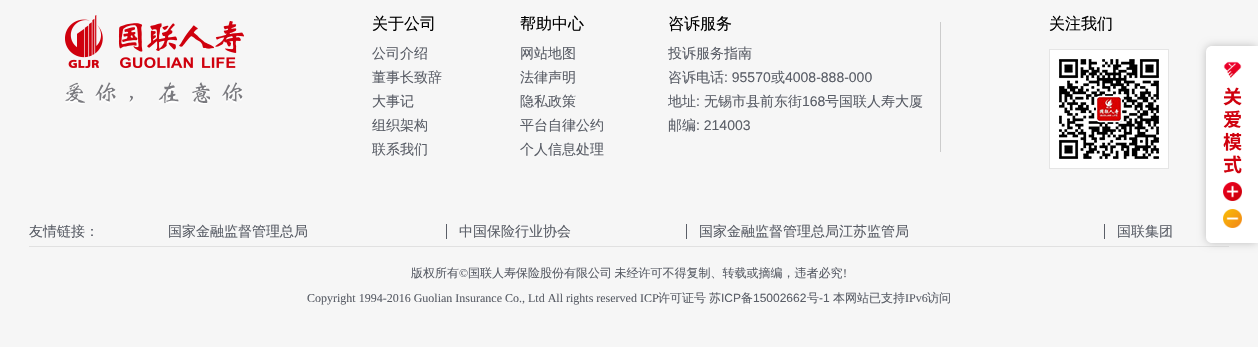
void draw(SkCanvas* canvas) {
	SkPaint paint;
	paint.setAntiAlias(true);
	auto spacedText = [&](const char* s, float x, float y, const SkFont& font, const SkPaint& ink, float letter, float word) {
		std::vector<SkGlyphID> glyphs(font.countText(s, strlen(s), SkTextEncoding::kUTF8));
		std::vector<float> xs(glyphs.size());
		font.textToGlyphs(s, strlen(s), SkTextEncoding::kUTF8, glyphs);
		font.getXPos(glyphs, xs, x);
		float extra = 0;
		for (size_t i = 0; i < glyphs.size(); i++) {
			xs[i] += extra;
			extra += letter + word * (glyphs[i] == font.unicharToGlyph(' '));
		}
		canvas->drawTextBlob(SkTextBlob::MakeFromPosHGlyphs(glyphs, xs, y, font), 0, 0, ink);
	};
	auto svgPath = [&](const char* data, bool evenOdd = false) {
		SkPath result = *SkParsePath::FromSVGString(data);
		if (evenOdd) result.setFillType(SkPathFillType::kEvenOdd);
		return result;
	};
	canvas->clear(0xfff6f6f6);
	canvas->drawImageRect(SkImages::DeferredFromEncodedData(SkData::MakeFromFileName("img1.png")), SkRect::MakeXYWH(65, 15, 179, 89), SkSamplingOptions());
	paint.setColor(0xffcccccc);
	canvas->drawRect(SkRect::MakeXYWH(940, 22, 1, 130), paint);
	SkFont f1(fontMgr->matchFamilyStyle("WenQuanYi Zen Hei", SkFontStyle(500, SkFontStyle::kNormal_Width, SkFontStyle::kUpright_Slant)), 16);
	f1.setSubpixel(true);
	paint.setColor(0xff000000);
	canvas->drawString("关于公司", 372, 29, f1, paint);
	SkFont f2(fontMgr->matchFamilyStyle("WenQuanYi Zen Hei", SkFontStyle(500, SkFontStyle::kNormal_Width, SkFontStyle::kUpright_Slant)), 14);
	f2.setSubpixel(true);
	paint.setColor(0xff5a5e67);
	canvas->drawString("公司介绍", 372, 58, f2, paint);
	canvas->drawString("董事长致辞", 372, 82, f2, paint);
	canvas->drawString("大事记", 372, 106, f2, paint);
	canvas->drawString("组织架构", 372, 130, f2, paint);
	canvas->drawString("联系我们", 372, 154, f2, paint);
	paint.setColor(0xff000000);
	canvas->drawString("帮助中心", 520, 29, f1, paint);
	paint.setColor(0xff5a5e67);
	canvas->drawString("网站地图", 520, 58, f2, paint);
	canvas->drawString("法律声明", 520, 82, f2, paint);
	canvas->drawString("隐私政策", 520, 106, f2, paint);
	canvas->drawString("平台自律公约", 520, 130, f2, paint);
	canvas->drawString("个人信息处理", 520, 154, f2, paint);
	paint.setColor(0xff000000);
	canvas->drawString("咨诉服务", 668, 29, f1, paint);
	paint.setColor(0xff5a5e67);
	canvas->drawString("投诉服务指南", 668, 58, f2, paint);
	canvas->drawString("咨诉电话", 668, 82, f2, paint);
	SkFont f3(fontMgr->matchFamilyStyle("Liberation Sans", SkFontStyle::Normal()), 14);
	f3.setSubpixel(true);
	canvas->drawString(": 95570", 724, 82, f3, paint);
	canvas->drawString("或", 771, 82, f2, paint);
	canvas->drawString("4008-888-000", 785, 82, f3, paint);
	canvas->drawString("地址", 668, 106, f2, paint);
	canvas->drawString(":", 696, 106, f3, paint);
	canvas->drawString("无锡市县前东街", 704, 106, f2, paint);
	canvas->drawString("168", 802, 106, f3, paint);
	canvas->drawString("号国联人寿大厦", 825, 106, f2, paint);
	canvas->drawString("邮编", 668, 130, f2, paint);
	canvas->drawString(": 214003", 696, 130, f3, paint);
	paint.setColor(0xff000000);
	canvas->drawString("关注我们", 1049, 29, f1, paint);
	canvas->drawImageRect(SkImages::DeferredFromEncodedData(SkData::MakeFromFileName("img2.png")), SkRect::MakeXYWH(1049, 49, 120, 120), SkSamplingOptions());
	paint.setColor(0xff5a5e67);
	canvas->drawString("友情链接：", 29, 236, f2, paint);
	canvas->drawRect(SkRect::MakeXYWH(446, 224, 1, 15), paint);
	canvas->drawString("国家金融监督管理总局", 168, 236, f2, paint);
	canvas->drawRect(SkRect::MakeXYWH(686, 224, 1, 15), paint);
	canvas->drawString("中国保险行业协会", 459, 236, f2, paint);
	canvas->drawRect(SkRect::MakeXYWH(1104, 224, 1, 15), paint);
	canvas->drawString("国家金融监督管理总局江苏监管局", 699, 236, f2, paint);
	canvas->drawString("国联集团", 1117, 236, f2, paint);
	paint.setColor(0xffe1e1e1);
	canvas->drawRect(SkRect::MakeXYWH(29, 246, 1200, 1), paint);
	SkFont f4(fontMgr->matchFamilyStyle("WenQuanYi Zen Hei", SkFontStyle(500, SkFontStyle::kNormal_Width, SkFontStyle::kUpright_Slant)), 12);
	f4.setSubpixel(true);
	paint.setColor(0xff5a5e67);
	canvas->drawString("版权所有", 411, 277, f4, paint);
	SkFont f5(fontMgr->matchFamilyStyle("Liberation Serif", SkFontStyle::Normal()), 12);
	f5.setSubpixel(true);
	canvas->drawString("©", 459, 277, f5, paint);
	spacedText("国联人寿保险股份有限公司 未经许可不得复制、转载或摘编，违者必究", 468, 277, f4, paint, 0, -1);
	canvas->drawString("!", 843, 277, f5, paint);
	canvas->drawString("Copyright 1994-2016 Guolian Insurance Co., Ltd All rights reserved ICP", 307, 302, f5, paint);
	canvas->drawString("许可证号", 658, 302, f4, paint);
	canvas->drawString("苏", 709, 302, f4, paint);
	SkFont f6(fontMgr->matchFamilyStyle("Liberation Sans", SkFontStyle::Normal()), 12);
	f6.setSubpixel(true);
	canvas->drawString("ICP", 721, 302, f6, paint);
	canvas->drawString("备", 741, 302, f4, paint);
	canvas->drawString("15002662", 753, 302, f6, paint);
	canvas->drawString("号", 807, 302, f4, paint);
	canvas->drawString("-1", 819, 302, f6, paint);
	canvas->drawString("本网站已支持", 833, 302, f4, paint);
	canvas->drawString("IPv6", 905, 302, f5, paint);
	canvas->drawString("访问", 927, 302, f4, paint);
	paint.setColor(0xffbdbdbd);
	paint.setMaskFilter(SkMaskFilter::MakeBlur(kNormal_SkBlurStyle, 4));
	canvas->drawRoundRect(SkRect::MakeXYWH(1206, 46, 52, 197), 6, 6, paint);
	paint.setMaskFilter(nullptr);
	paint.setColor(0xffffffff);
	canvas->drawPath(svgPath("M1212 46H1258V243H1212C1208.5 243 1206 240.5 1206 237V52C1206 48.5 1208.5 46 1212 46Z"), paint);
	canvas->drawImageRect(SkImages::DeferredFromEncodedData(SkData::MakeFromFileName("img3.png")), SkRect::MakeXYWH(1223, 61, 19, 17), SkSamplingOptions());
	canvas->drawImageRect(SkImages::DeferredFromEncodedData(SkData::MakeFromFileName("img4.png")), SkRect::MakeXYWH(1223, 87, 19, 87), SkSamplingOptions());
	canvas->drawImageRect(SkImages::DeferredFromEncodedData(SkData::MakeFromFileName("img5.png")), SkRect::MakeXYWH(1223, 182, 19, 19), SkSamplingOptions());
	canvas->drawImageRect(SkImages::DeferredFromEncodedData(SkData::MakeFromFileName("img6.png")), SkRect::MakeXYWH(1223, 209, 19, 19), SkSamplingOptions());
}
